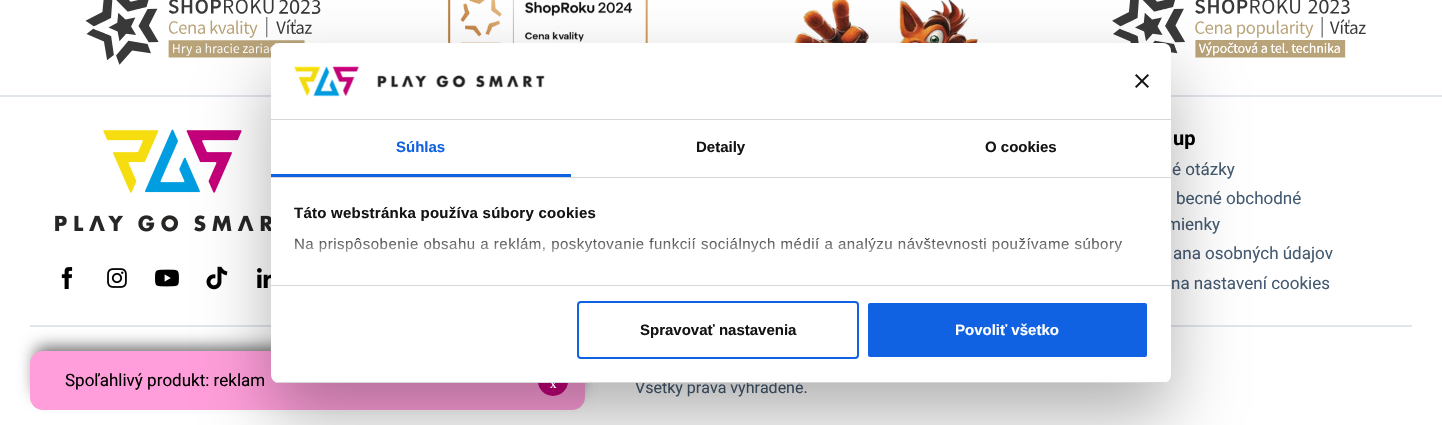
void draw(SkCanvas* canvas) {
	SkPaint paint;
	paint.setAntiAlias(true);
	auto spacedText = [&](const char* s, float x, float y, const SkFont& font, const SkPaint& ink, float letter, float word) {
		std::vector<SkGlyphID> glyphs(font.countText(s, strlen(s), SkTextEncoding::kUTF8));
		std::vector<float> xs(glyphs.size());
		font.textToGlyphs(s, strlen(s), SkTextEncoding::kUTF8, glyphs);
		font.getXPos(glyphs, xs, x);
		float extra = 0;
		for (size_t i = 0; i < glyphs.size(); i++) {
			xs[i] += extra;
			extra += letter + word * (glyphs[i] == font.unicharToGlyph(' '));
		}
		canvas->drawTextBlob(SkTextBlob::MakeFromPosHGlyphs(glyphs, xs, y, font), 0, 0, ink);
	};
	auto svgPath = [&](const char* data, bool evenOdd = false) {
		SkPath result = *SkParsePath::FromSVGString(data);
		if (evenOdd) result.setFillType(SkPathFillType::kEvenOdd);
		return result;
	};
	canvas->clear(0xffffffff);
	canvas->drawImageRect(SkImages::DeferredFromEncodedData(SkData::MakeFromFileName("img1.png")), SkRect::MakeXYWH(85, 0, 236, 65), SkSamplingOptions());
	canvas->drawImageRect(SkImages::DeferredFromEncodedData(SkData::MakeFromFileName("img2.png")), SkRect::MakeXYWH(447, 0, 201, 43), SkSamplingOptions());
	canvas->drawImageRect(SkImages::DeferredFromEncodedData(SkData::MakeFromFileName("img3.png")), SkRect::MakeXYWH(794, 0, 184, 43), SkSamplingOptions());
	canvas->drawImageRect(SkImages::DeferredFromEncodedData(SkData::MakeFromFileName("img4.png")), SkRect::MakeXYWH(1112, 0, 254, 58), SkSamplingOptions());
	paint.setColor(0xffe1e5ec);
	canvas->drawRect(SkRect::MakeXYWH(0, 95, 1442, 2), paint);
	canvas->drawImageRect(SkImages::DeferredFromEncodedData(SkData::MakeFromFileName("img5.png")), SkRect::MakeXYWH(55, 129, 216, 103), SkSamplingOptions());
	canvas->drawImageRect(SkImages::DeferredFromEncodedData(SkData::MakeFromFileName("img6.png")), SkRect::MakeXYWH(61, 267, 12, 22), SkSamplingOptions());
	canvas->drawImageRect(SkImages::DeferredFromEncodedData(SkData::MakeFromFileName("img7.png")), SkRect::MakeXYWH(107, 268, 20, 20), SkSamplingOptions());
	canvas->drawImageRect(SkImages::DeferredFromEncodedData(SkData::MakeFromFileName("img8.png")), SkRect::MakeXYWH(155, 269, 24, 18), SkSamplingOptions());
	canvas->drawImageRect(SkImages::DeferredFromEncodedData(SkData::MakeFromFileName("img9.png")), SkRect::MakeXYWH(206, 266, 22, 24), SkSamplingOptions());
	canvas->drawImageRect(SkImages::DeferredFromEncodedData(SkData::MakeFromFileName("img10.png")), SkRect::MakeXYWH(257, 268, 14, 20), SkSamplingOptions());
	SkFont f1(fontMgr->matchFamilyStyle("Roboto", SkFontStyle::Bold()), 20);
	f1.setSubpixel(true);
	paint.setColor(0xff000000);
	canvas->drawString("up", 1173, 145, f1, paint);
	SkFont f2(fontMgr->matchFamilyStyle("Roboto", SkFontStyle::Normal()), 17);
	f2.setSubpixel(true);
	paint.setColor(0xff455b72);
	canvas->drawString("é otázky", 1172, 175, f2, paint);
	canvas->drawString("becné obchodné", 1176, 204, f2, paint);
	canvas->drawString("mienky", 1166, 230, f2, paint);
	canvas->drawString("ana osobných údajov", 1173, 259, f2, paint);
	canvas->drawString("na nastavení cookies", 1171, 289, f2, paint);
	paint.setColor(0xffe1e5ec);
	canvas->drawRect(SkRect::MakeXYWH(30, 325, 1382, 2), paint);
	SkFont f3(fontMgr->matchFamilyStyle("Roboto", SkFontStyle::Normal()), 16);
	f3.setSubpixel(true);
	paint.setColor(0xff455b72);
	canvas->drawString("Všetky práva vyhradené.", 635, 393, f3, paint);
	paint.setColor(0xff686868);
	paint.setMaskFilter(SkMaskFilter::MakeBlur(kNormal_SkBlurStyle, 8));
	canvas->drawRoundRect(SkRect::MakeXYWH(35, 347, 545, 49), 8, 8, paint);
	paint.setMaskFilter(nullptr);
	paint.setColor(0xffff9eda);
	canvas->drawRoundRect(SkRect::MakeXYWH(30, 351, 555, 59), 13, 13, paint);
	paint.setColor(0xffc4007a);
	canvas->drawCircle(553, 381, 15, paint);
	paint.setColor(0x4d000000);
	paint.setMaskFilter(SkMaskFilter::MakeBlur(kNormal_SkBlurStyle, 34));
	canvas->drawRoundRect(SkRect::MakeXYWH(271, 75, 900, 340), 8, 8, paint);
	paint.setMaskFilter(nullptr);
	paint.setColor(0xffffffff);
	canvas->drawRoundRect(SkRect::MakeXYWH(271, 43, 900, 340), 8, 8, paint);
	paint.setColor(0xffd6d6d6);
	canvas->drawRect(SkRect::MakeXYWH(271, 119, 900, 1), paint);
	canvas->drawImageRect(SkImages::DeferredFromEncodedData(SkData::MakeFromFileName("img11.png")), SkRect::MakeXYWH(293, 66, 252, 31), SkSamplingOptions());
	canvas->drawImageRect(SkImages::DeferredFromEncodedData(SkData::MakeFromFileName("img12.png")), SkRect::MakeXYWH(1135, 74, 14, 14), SkSamplingOptions());
	canvas->drawRect(SkRect::MakeXYWH(271, 177, 900, 1), paint);
	paint.setColor(0xff1062e3);
	canvas->drawRect(SkRect::MakeXYWH(271, 174, 300, 3), paint);
	SkFont f4(fontMgr->matchFamilyStyle("Liberation Sans", SkFontStyle::Bold()), 15);
	f4.setSubpixel(true);
	canvas->drawString("Súhlas", 396, 152, f4, paint);
	paint.setColor(0xff141414);
	canvas->drawString("Detaily", 696, 152, f4, paint);
	canvas->drawString("O cookies", 985, 152, f4, paint);
	paint.setColor(0xffd6d6d6);
	canvas->drawRect(SkRect::MakeXYWH(271, 285, 900, 1), paint);
	paint.setColor(0xff141414);
	spacedText("Táto webstránka používa súbory cookies", 294, 218, f4, paint, 0.25, 0);
	SkFont f5(fontMgr->matchFamilyStyle("Liberation Sans", SkFontStyle::Normal()), 15);
	f5.setSubpixel(true);
	spacedText("Na prispôsobenie obsahu a reklám, poskytovanie funkcií sociálnych médií a analýzu návštevnosti používame súbory", 294, 249, f5, paint, 0.5, 0);
	{
		const SkColor colors[] = {0xffffffff, 0xccffffff, 0x00ffffff};
		const float stops[] = {0, 0.5, 1};
		const SkPoint ends[] = {{711, 285}, {711, 232}};
		paint.setShader(SkGradientShader::MakeLinear(ends, colors, stops, 3, SkTileMode::kClamp));
		paint.setAlpha(255);
	}
	canvas->drawRect(SkRect::MakeXYWH(294, 238, 828, 15), paint);
	SkFont f6(fontMgr->matchFamilyStyle("Liberation Serif", SkFontStyle::Normal()), 13);
	f6.setSubpixel(true);
	paint.setShader(nullptr);
	paint.setColor(0xffffffff);
	canvas->drawString("x", 550, 388, f6, paint);
	canvas->save();
	canvas->clipPath(svgPath("M279 43H1163C1167.5 43 1171 46.5 1171 51V375C1171 379.5 1167.5 383 1163 383H279C274.5 383 271 379.5 271 375V51C271 46.5 274.5 43 279 43Z"), true);
	paint.setColor(0xffd6d6d6);
	canvas->drawRect(SkRect::MakeXYWH(271, 382, 900, 1), paint);
	canvas->restore();
	paint.setStroke(true);
	paint.setStrokeWidth(2);
	paint.setColor(0xff1062e3);
	canvas->drawRoundRect(SkRect::MakeXYWH(578, 302, 280, 56), 3, 3, paint);
	paint.setStroke(false);
	paint.setColor(0xff141414);
	canvas->drawString("Spravovať nastavenia", 640, 335, f4, paint);
	paint.setColor(0xff1062e3);
	canvas->drawRoundRect(SkRect::MakeXYWH(867, 302, 281, 56), 3, 3, paint);
	paint.setStroke(true);
	paint.setColor(0xffffffff);
	canvas->drawRoundRect(SkRect::MakeXYWH(867, 302, 281, 56), 3, 3, paint);
	paint.setStroke(false);
	canvas->drawString("Povoliť všetko", 955, 335, f4, paint);
	paint.setColor(0xff000000);
	canvas->drawString("Spoľahlivý produkt: reklam", 65, 386, f2, paint);
}
